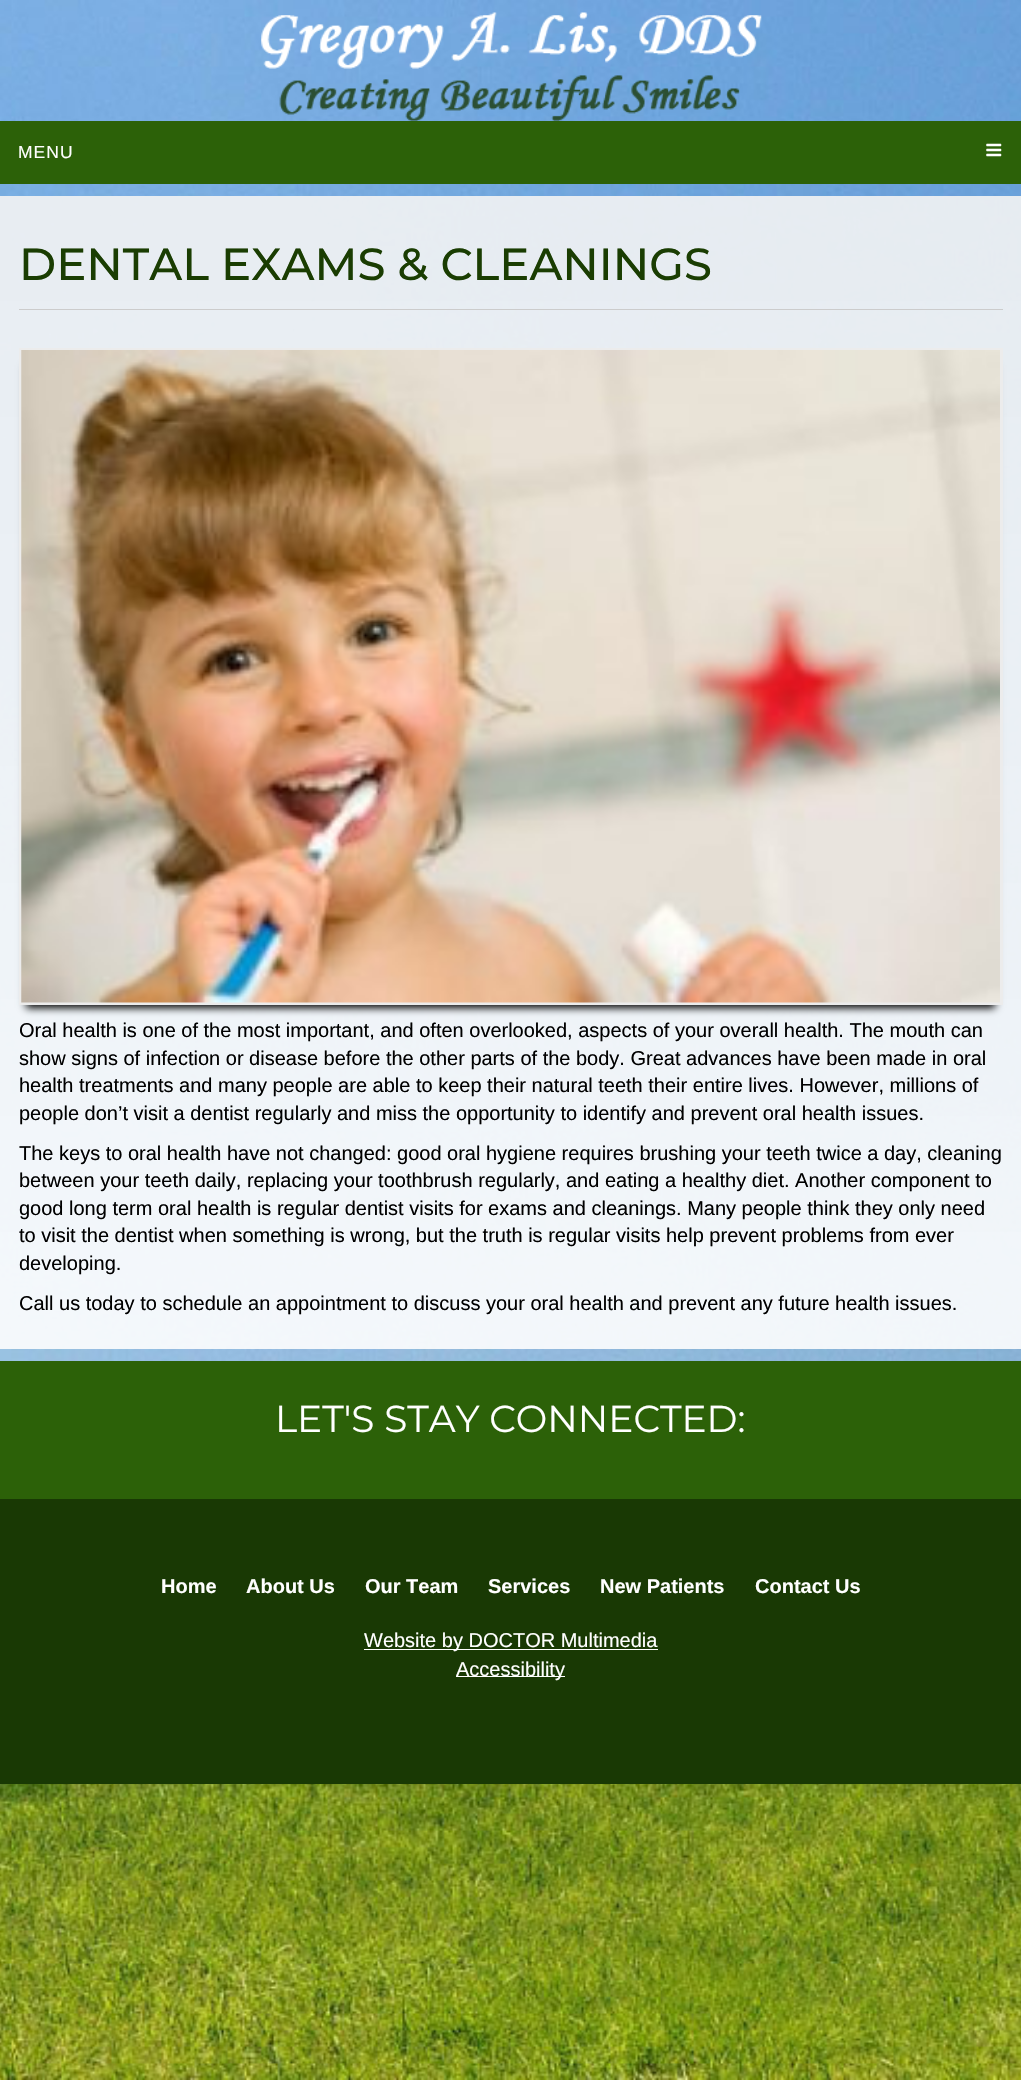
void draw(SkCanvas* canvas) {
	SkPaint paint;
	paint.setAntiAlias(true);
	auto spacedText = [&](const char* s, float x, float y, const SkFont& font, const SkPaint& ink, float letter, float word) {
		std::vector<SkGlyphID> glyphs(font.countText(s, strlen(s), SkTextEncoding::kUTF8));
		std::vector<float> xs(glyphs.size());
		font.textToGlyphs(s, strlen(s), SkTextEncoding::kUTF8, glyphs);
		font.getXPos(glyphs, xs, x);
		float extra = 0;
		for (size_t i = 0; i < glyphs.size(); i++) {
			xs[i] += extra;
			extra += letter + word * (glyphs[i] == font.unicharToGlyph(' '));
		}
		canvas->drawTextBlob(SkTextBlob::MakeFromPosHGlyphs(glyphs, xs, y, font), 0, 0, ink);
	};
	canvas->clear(0xffffffff);
	canvas->drawImageRect(SkImages::DeferredFromEncodedData(SkData::MakeFromFileName("img1.png")), SkRect::MakeXYWH(0, 0, 1021, 2080), SkSamplingOptions());
	canvas->drawImageRect(SkImages::DeferredFromEncodedData(SkData::MakeFromFileName("img2.png")), SkRect::MakeXYWH(261, 12, 501, 109), SkSamplingOptions());
	paint.setColor(0xff2c6108);
	canvas->drawRect(SkRect::MakeXYWH(0, 121, 1021, 63), paint);
	SkFont f1(fontMgr->matchFamilyStyle("Liberation Sans", SkFontStyle::Normal()), 17.5);
	f1.setSubpixel(true);
	paint.setColor(0xffffffff);
	spacedText("MENU", 18, 158, f1, paint, 1, 0);
	canvas->drawImageRect(SkImages::DeferredFromEncodedData(SkData::MakeFromFileName("img3.png")), SkRect::MakeXYWH(986, 143, 16, 14), SkSamplingOptions());
	SkFont f2(fontMgr->matchFamilyStyle("Montserrat", SkFontStyle(500, SkFontStyle::kNormal_Width, SkFontStyle::kUpright_Slant)), 45);
	f2.setSubpixel(true);
	paint.setColor(0xff1a3d02);
	canvas->drawString("DENTAL EXAMS & CLEANINGS", 19, 280, f2, paint);
	paint.setColor(0xffcccccc);
	canvas->drawRect(SkRect::MakeXYWH(19, 309, 984, 1), paint);
	paint.setColor(0xff000000);
	paint.setMaskFilter(SkMaskFilter::MakeBlur(kNormal_SkBlurStyle, 4));
	canvas->drawRect(SkRect::MakeXYWH(26, 365, 969, 643), paint);
	paint.setMaskFilter(nullptr);
	paint.setStroke(true);
	paint.setStrokeWidth(3);
	paint.setColor(0xffececec);
	canvas->drawRect(SkRect::MakeXYWH(20.5, 349.5, 981, 654), paint);
	canvas->drawImageRect(SkImages::DeferredFromEncodedData(SkData::MakeFromFileName("img4.png")), SkRect::MakeXYWH(21, 350, 979, 653), SkSamplingOptions());
	SkFont f3(fontMgr->matchFamilyStyle("Liberation Sans", SkFontStyle::Normal()), 20);
	f3.setSubpixel(true);
	paint.setStroke(false);
	paint.setColor(0xff000000);
	canvas->drawString("Oral health is one of the most important, and often overlooked, aspects of your overall health. The mouth can", 19, 1037, f3, paint);
	canvas->drawString("show signs of infection or disease before the other parts of the body. Great advances have been made in oral", 19, 1065, f3, paint);
	canvas->drawString("health treatments and many people are able to keep their natural teeth their entire lives. However, millions of", 19, 1092, f3, paint);
	canvas->drawString("people don’t visit a dentist regularly and miss the opportunity to identify and prevent oral health issues.", 19, 1120, f3, paint);
	canvas->drawString("The keys to oral health have not changed: good oral hygiene requires brushing your teeth twice a day, cleaning", 19, 1160, f3, paint);
	canvas->drawString("between your teeth daily, replacing your toothbrush regularly, and eating a healthy diet. Another component to", 19, 1187, f3, paint);
	canvas->drawString("good long term oral health is regular dentist visits for exams and cleanings. Many people think they only need", 19, 1215, f3, paint);
	canvas->drawString("to visit the dentist when something is wrong, but the truth is regular visits help prevent problems from ever", 19, 1242, f3, paint);
	canvas->drawString("developing.", 19, 1270, f3, paint);
	canvas->drawString("Call us today to schedule an appointment to discuss your oral health and prevent any future health issues.", 19, 1310, f3, paint);
	paint.setColor(0xff2c6108);
	canvas->drawRect(SkRect::MakeXYWH(0, 1361, 1021, 138), paint);
	SkFont f4(fontMgr->matchFamilyStyle("Montserrat", SkFontStyle::Normal()), 37.5);
	f4.setSubpixel(true);
	paint.setColor(0xffffffff);
	canvas->drawString("LET'S STAY CONNECTED:", 275, 1432, f4, paint);
	paint.setColor(0xff193904);
	canvas->drawRect(SkRect::MakeXYWH(0, 1499, 1021, 285), paint);
	SkFont f5(fontMgr->matchFamilyStyle("Liberation Sans", SkFontStyle::Bold()), 20);
	f5.setSubpixel(true);
	paint.setColor(0xffffffff);
	canvas->drawString("Home", 161, 1593, f5, paint);
	canvas->drawString("About Us", 246, 1593, f5, paint);
	canvas->drawString("Our Team", 365, 1593, f5, paint);
	canvas->drawString("Services", 488, 1593, f5, paint);
	canvas->drawString("New Patients", 600, 1593, f5, paint);
	canvas->drawString("Contact Us", 755, 1593, f5, paint);
	canvas->drawRect(SkRect::MakeXYWH(364, 1649, 294, 1), paint);
	canvas->drawString("Website by DOCTOR Multimedia", 364, 1647, f3, paint);
	canvas->drawRect(SkRect::MakeXYWH(456, 1676, 109, 1), paint);
	canvas->drawString("Accessibility", 456, 1676, f3, paint);
}
